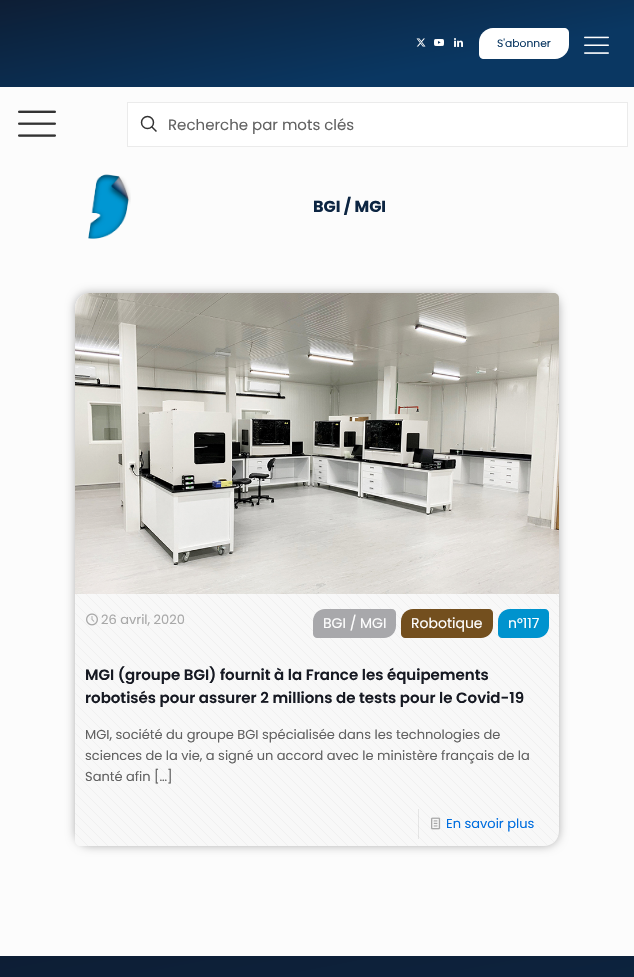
void draw(SkCanvas* canvas) {
	SkPaint paint;
	paint.setAntiAlias(true);
	auto svgPath = [&](const char* data, bool evenOdd = false) {
		SkPath result = *SkParsePath::FromSVGString(data);
		if (evenOdd) result.setFillType(SkPathFillType::kEvenOdd);
		return result;
	};
	canvas->clear(0xfffcfcfc);
	{
		const SkColor colors[] = {0xff0a3762, 0xff0d1e35};
		const float stops[] = {0.28, 1};
		const SkPoint ends[] = {{337, 145}, {297, -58}};
		paint.setShader(SkGradientShader::MakeLinear(ends, colors, stops, 2, SkTileMode::kClamp));
		paint.setAlpha(255);
	}
	canvas->drawRect(SkRect::MakeXYWH(0, 0, 634, 87), paint);
	canvas->drawImageRect(SkImages::DeferredFromEncodedData(SkData::MakeFromFileName("img1.png")), SkRect::MakeXYWH(416, 38, 10, 9), SkSamplingOptions());
	canvas->drawImageRect(SkImages::DeferredFromEncodedData(SkData::MakeFromFileName("img2.png")), SkRect::MakeXYWH(434, 39, 10, 7), SkSamplingOptions());
	canvas->drawImageRect(SkImages::DeferredFromEncodedData(SkData::MakeFromFileName("img3.png")), SkRect::MakeXYWH(454, 38, 9, 9), SkSamplingOptions());
	paint.setShader(nullptr);
	paint.setColor(0xffffffff);
	canvas->drawPath(svgPath("M493 28H564C567 28 569 30 569 33V45C569 52.5 562.5 59 555 59H484C481 59 479 57 479 54V42C479 34.5 485.5 28 493 28Z"), paint);
	SkFont f1(fontMgr->matchFamilyStyle("Poppins", SkFontStyle::Normal()), 10.75);
	f1.setSubpixel(true);
	paint.setColor(0xff0a3762);
	canvas->drawString("S'abonner", 497, 47, f1, paint);
	canvas->drawImageRect(SkImages::DeferredFromEncodedData(SkData::MakeFromFileName("img4.png")), SkRect::MakeXYWH(584, 36, 25, 18), SkSamplingOptions());
	canvas->drawImageRect(SkImages::DeferredFromEncodedData(SkData::MakeFromFileName("img5.png")), SkRect::MakeXYWH(18, 110, 38, 27), SkSamplingOptions());
	paint.setColor(0xffffffff);
	canvas->drawRect(SkRect::MakeXYWH(127.5, 102.5, 500, 44), paint);
	paint.setStroke(true);
	paint.setStrokeWidth(1);
	paint.setColor(0xffebebeb);
	canvas->drawRect(SkRect::MakeXYWH(127.5, 102.5, 500, 44), paint);
	paint.setStrokeWidth(1.5);
	paint.setColor(0xff333333);
	canvas->drawCircle(147.5, 122.5, 6, paint);
	canvas->drawPath(svgPath("M151.5 126.5L156.5 131.5"), paint);
	SkFont f2(fontMgr->matchFamilyStyle("Poppins", SkFontStyle::Normal()), 15);
	f2.setSubpixel(true);
	paint.setStroke(false);
	paint.setColor(0xff626262);
	canvas->drawString("Recherche par mots clés", 168, 130, f2, paint);
	canvas->drawImageRect(SkImages::DeferredFromEncodedData(SkData::MakeFromFileName("img6.png")), SkRect::MakeXYWH(88, 174, 43, 65), SkSamplingOptions());
	SkFont f3(fontMgr->matchFamilyStyle("Poppins", SkFontStyle::Bold()), 16);
	f3.setSubpixel(true);
	paint.setColor(0xff0c2542);
	canvas->drawString("BGI / MGI", 313, 212, f3, paint);
	paint.setColor(0x4d000000);
	paint.setMaskFilter(SkMaskFilter::MakeBlur(kNormal_SkBlurStyle, 5));
	canvas->drawRoundRect(SkRect::MakeXYWH(75, 293, 484, 553), 15, 15, paint);
	paint.setMaskFilter(nullptr);
	paint.setColor(0xfff8f8f8);
	canvas->drawPath(svgPath("M90 293H554C557 293 559 295 559 298V831C559 839.5 552.5 846 544 846H80C77 846 75 844 75 841V308C75 299.5 81.5 293 90 293Z"), paint);
	canvas->drawImageRect(SkImages::DeferredFromEncodedData(SkData::MakeFromFileName("img7.png")), SkRect::MakeXYWH(75, 293, 484, 553), SkSamplingOptions());
	canvas->drawImageRect(SkImages::DeferredFromEncodedData(SkData::MakeFromFileName("img8.png")), SkRect::MakeXYWH(75, 293, 484, 301), SkSamplingOptions());
	canvas->drawImageRect(SkImages::DeferredFromEncodedData(SkData::MakeFromFileName("img9.png")), SkRect::MakeXYWH(86, 613, 12, 13), SkSamplingOptions());
	SkFont f4(fontMgr->matchFamilyStyle("Poppins", SkFontStyle::Normal()), 13);
	f4.setSubpixel(true);
	paint.setColor(0xffa8a8a8);
	canvas->drawString("26 avril, 2020", 101, 624, f4, paint);
	paint.setColor(0xffa8a8ab);
	canvas->drawPath(svgPath("M325 609H392C394 609 396 611 396 613V626C396 632.5 390.5 638 384 638H317C315 638 313 636 313 634V621C313 614.5 318.5 609 325 609Z"), paint);
	SkFont f5(fontMgr->matchFamilyStyle("Poppins", SkFontStyle::Normal()), 14);
	f5.setSubpixel(true);
	paint.setColor(0xffffffff);
	canvas->drawString("BGI / MGI", 323, 628, f5, paint);
	paint.setColor(0xff734f1e);
	canvas->drawPath(svgPath("M413 609H489C491 609 493 611 493 613V626C493 632.5 487.5 638 481 638H405C403 638 401 636 401 634V621C401 614.5 406.5 609 413 609Z"), paint);
	paint.setColor(0xffffffff);
	canvas->drawString("Robotique", 411, 628, f5, paint);
	paint.setColor(0xff0093ce);
	canvas->drawPath(svgPath("M510 609H545C547 609 549 611 549 613V626C549 632.5 543.5 638 537 638H502C500 638 498 636 498 634V621C498 614.5 503.5 609 510 609Z"), paint);
	paint.setColor(0xffffffff);
	canvas->drawString("n°117", 508, 628, f5, paint);
	SkFont f6(fontMgr->matchFamilyStyle("Poppins", SkFontStyle(600, SkFontStyle::kNormal_Width, SkFontStyle::kUpright_Slant)), 15);
	f6.setSubpixel(true);
	paint.setColor(0xff161922);
	canvas->drawString("MGI (groupe BGI) fournit à la France les équipements", 85, 680, f6, paint);
	canvas->drawString("robotisés pour assurer 2 millions de tests pour le Covid-19", 85, 703, f6, paint);
	paint.setColor(0xff626262);
	canvas->drawString("MGI, société du groupe BGI spécialisée dans les technologies de", 85, 739, f4, paint);
	canvas->drawString("sciences de la vie, a signé un accord avec le ministère français de la", 85, 760, f4, paint);
	canvas->drawString("Santé afin […]", 85, 781, f4, paint);
	paint.setColor(0x14000000);
	canvas->drawRect(SkRect::MakeXYWH(418, 809, 1, 30), paint);
	canvas->drawImageRect(SkImages::DeferredFromEncodedData(SkData::MakeFromFileName("img10.png")), SkRect::MakeXYWH(431, 817, 10, 13), SkSamplingOptions());
	paint.setColor(0xff006edf);
	canvas->drawString("En savoir plus", 446, 828, f4, paint);
	{
		const SkColor colors[] = {0xff0a3762, 0xff0d1e35};
		const float stops[] = {0.28, 1};
		const SkPoint ends[] = {{413, 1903}, {221, 913}};
		paint.setShader(SkGradientShader::MakeLinear(ends, colors, stops, 2, SkTileMode::kClamp));
		paint.setAlpha(255);
	}
	canvas->drawRect(SkRect::MakeXYWH(0, 956, 634, 21), paint);
}
